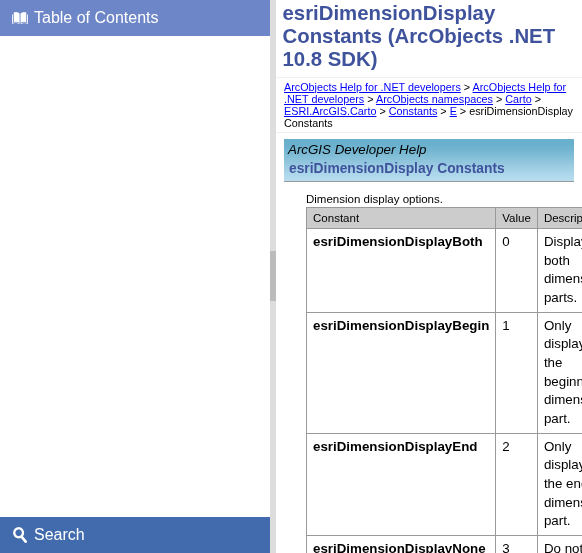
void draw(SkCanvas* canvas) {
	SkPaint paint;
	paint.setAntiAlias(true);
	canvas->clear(0xffffffff);
	canvas->drawImageRect(SkImages::DeferredFromEncodedData(SkData::MakeFromFileName("img1.png")), SkRect::MakeXYWH(0, 0, 270, 553), SkSamplingOptions());
	paint.setColor(0xffdddddd);
	canvas->drawRect(SkRect::MakeXYWH(270, 0, 6, 553), paint);
	paint.setColor(0xffbbbbbb);
	canvas->drawRect(SkRect::MakeXYWH(270, 251, 6, 50), paint);
	canvas->drawImageRect(SkImages::DeferredFromEncodedData(SkData::MakeFromFileName("img2.png")), SkRect::MakeXYWH(276, 5, 306, 548), SkSamplingOptions());
}
